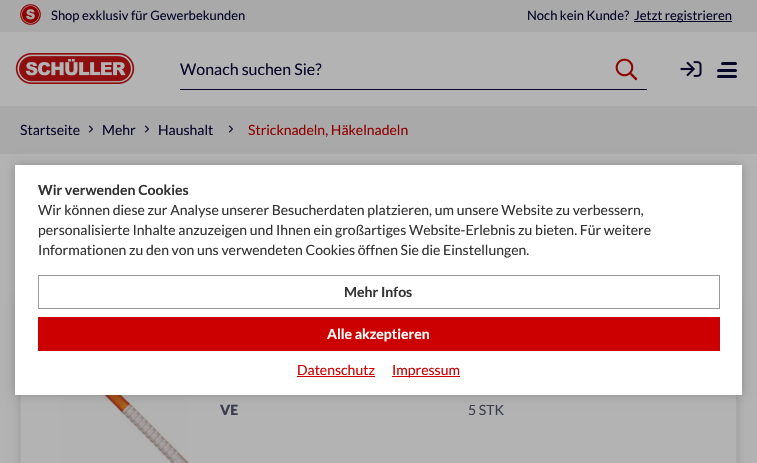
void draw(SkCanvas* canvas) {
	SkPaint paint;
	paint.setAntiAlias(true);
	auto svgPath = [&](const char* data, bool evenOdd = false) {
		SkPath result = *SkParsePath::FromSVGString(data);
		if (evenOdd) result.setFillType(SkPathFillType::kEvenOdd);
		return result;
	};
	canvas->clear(0xffb3b3b3);
	paint.setColor(0xffa9a9a9);
	canvas->drawRect(SkRect::MakeXYWH(0, 0, 757, 32), paint);
	canvas->drawImageRect(SkImages::DeferredFromEncodedData(SkData::MakeFromFileName("img1.png")), SkRect::MakeXYWH(20, 4, 21, 21), SkSamplingOptions());
	SkFont f1(fontMgr->matchFamilyStyle("Lato", SkFontStyle::Normal()), 13);
	f1.setSubpixel(true);
	paint.setColor(0xff070629);
	canvas->drawString("Shop exklusiv für Gewerbekunden", 51, 20, f1, paint);
	canvas->drawString("Noch kein Kunde?", 527, 20, f1, paint);
	canvas->drawRect(SkRect::MakeXYWH(634, 21, 98, 1), paint);
	canvas->drawString("Jetzt registrieren", 634, 20, f1, paint);
	canvas->drawImageRect(SkImages::DeferredFromEncodedData(SkData::MakeFromFileName("img2.png")), SkRect::MakeXYWH(15, 53, 120, 31), SkSamplingOptions());
	canvas->drawRect(SkRect::MakeXYWH(180, 89, 467, 1), paint);
	SkFont f2(fontMgr->matchFamilyStyle("Lato", SkFontStyle::Normal()), 16);
	f2.setSubpixel(true);
	canvas->drawString("Wonach suchen Sie?", 180, 75, f2, paint);
	canvas->drawImageRect(SkImages::DeferredFromEncodedData(SkData::MakeFromFileName("img3.png")), SkRect::MakeXYWH(615, 58, 23, 23), SkSamplingOptions());
	canvas->drawImageRect(SkImages::DeferredFromEncodedData(SkData::MakeFromFileName("img4.png")), SkRect::MakeXYWH(680, 61, 22, 16), SkSamplingOptions());
	canvas->drawRoundRect(SkRect::MakeXYWH(721, 62, 16, 3), 1.5, 1.5, paint);
	canvas->drawRoundRect(SkRect::MakeXYWH(717, 69, 20, 3), 1.5, 1.5, paint);
	canvas->drawRoundRect(SkRect::MakeXYWH(717, 75, 20, 3), 1.5, 1.5, paint);
	paint.setColor(0xffa9a9a9);
	canvas->drawRect(SkRect::MakeXYWH(0, 106, 757, 48), paint);
	SkFont f3(fontMgr->matchFamilyStyle("Lato", SkFontStyle::Normal()), 14);
	f3.setSubpixel(true);
	paint.setColor(0xff070629);
	canvas->drawString("Startseite", 20, 135, f3, paint);
	canvas->drawImageRect(SkImages::DeferredFromEncodedData(SkData::MakeFromFileName("img5.png")), SkRect::MakeXYWH(88, 125, 5, 8), SkSamplingOptions());
	canvas->drawString("Mehr", 102, 135, f3, paint);
	canvas->drawImageRect(SkImages::DeferredFromEncodedData(SkData::MakeFromFileName("img5.png")), SkRect::MakeXYWH(144, 125, 5, 8), SkSamplingOptions());
	canvas->drawString("Haushalt", 158, 135, f3, paint);
	canvas->drawImageRect(SkImages::DeferredFromEncodedData(SkData::MakeFromFileName("img5.png")), SkRect::MakeXYWH(228, 125, 5, 8), SkSamplingOptions());
	paint.setColor(0xff8f0000);
	canvas->drawString("Stricknadeln, Häkelnadeln", 248, 135, f3, paint);
	canvas->save();
	canvas->clipPath(svgPath("M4 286H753V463H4ZM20 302H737V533H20Z", true), true);
	paint.setColor(0x26000000);
	paint.setMaskFilter(SkMaskFilter::MakeBlur(kNormal_SkBlurStyle, 5));
	canvas->drawRect(SkRect::MakeXYWH(20, 302, 717, 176), paint);
	paint.setMaskFilter(nullptr);
	canvas->restore();
	paint.setStroke(true);
	paint.setStrokeWidth(1);
	paint.setColor(0xffa9a9a9);
	canvas->drawRect(SkRect::MakeXYWH(20.5, 302.5, 716, 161), paint);
	canvas->drawImageRect(SkImages::DeferredFromEncodedData(SkData::MakeFromFileName("img6.png")), SkRect::MakeXYWH(58, 395, 132, 68), SkSamplingOptions());
	SkFont f4(fontMgr->matchFamilyStyle("Lato", SkFontStyle(900, SkFontStyle::kNormal_Width, SkFontStyle::kUpright_Slant)), 14);
	f4.setSubpixel(true);
	paint.setStroke(false);
	paint.setColor(0xff3c3e4c);
	canvas->drawString("VE", 220, 415, f4, paint);
	canvas->drawString("5 STK", 468, 415, f3, paint);
	paint.setColor(0x33000000);
	paint.setMaskFilter(SkMaskFilter::MakeBlur(kNormal_SkBlurStyle, 5));
	canvas->drawRect(SkRect::MakeXYWH(15, 165, 727, 230), paint);
	paint.setMaskFilter(nullptr);
	paint.setColor(0xffffffff);
	canvas->drawRect(SkRect::MakeXYWH(15, 165, 727, 230), paint);
	SkFont f5(fontMgr->matchFamilyStyle("Lato", SkFontStyle::Bold()), 14);
	f5.setSubpixel(true);
	paint.setColor(0xff333333);
	canvas->drawString("Wir verwenden Cookies", 38, 195, f5, paint);
	canvas->drawString("Wir können diese zur Analyse unserer Besucherdaten platzieren, um unsere Website zu verbessern,", 38, 215, f3, paint);
	canvas->drawString("personalisierte Inhalte anzuzeigen und Ihnen ein großartiges Website-Erlebnis zu bieten. Für weitere", 38, 235, f3, paint);
	canvas->drawString("Informationen zu den von uns verwendeten Cookies öffnen Sie die Einstellungen.", 38, 255, f3, paint);
	paint.setStroke(true);
	paint.setColor(0xff999999);
	canvas->drawRect(SkRect::MakeXYWH(38.5, 275.5, 681, 33), paint);
	paint.setStroke(false);
	paint.setColor(0xff333333);
	canvas->drawString("Mehr Infos", 344, 297, f5, paint);
	paint.setColor(0xffcc0000);
	canvas->drawRect(SkRect::MakeXYWH(38, 317, 682, 34), paint);
	paint.setColor(0xffffffff);
	canvas->drawString("Alle akzeptieren", 327, 339, f5, paint);
	paint.setColor(0xffcc0000);
	canvas->drawString("Datenschutz", 297, 375, f3, paint);
	canvas->drawRect(SkRect::MakeXYWH(297, 376, 78, 1), paint);
	canvas->drawRect(SkRect::MakeXYWH(392, 376, 68, 1), paint);
	canvas->drawString("Impressum", 392, 375, f3, paint);
}
